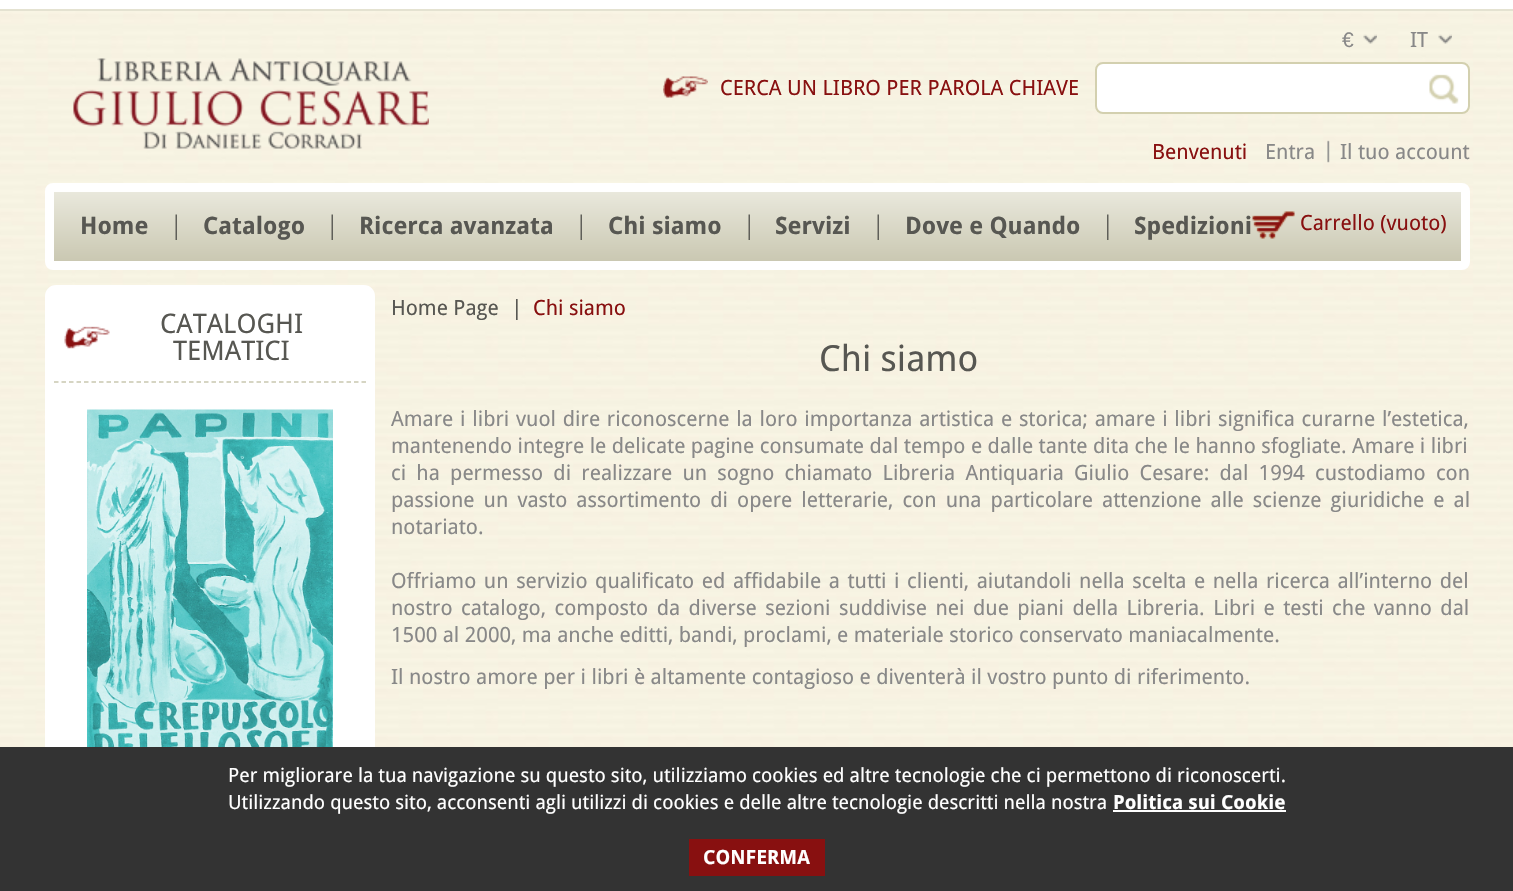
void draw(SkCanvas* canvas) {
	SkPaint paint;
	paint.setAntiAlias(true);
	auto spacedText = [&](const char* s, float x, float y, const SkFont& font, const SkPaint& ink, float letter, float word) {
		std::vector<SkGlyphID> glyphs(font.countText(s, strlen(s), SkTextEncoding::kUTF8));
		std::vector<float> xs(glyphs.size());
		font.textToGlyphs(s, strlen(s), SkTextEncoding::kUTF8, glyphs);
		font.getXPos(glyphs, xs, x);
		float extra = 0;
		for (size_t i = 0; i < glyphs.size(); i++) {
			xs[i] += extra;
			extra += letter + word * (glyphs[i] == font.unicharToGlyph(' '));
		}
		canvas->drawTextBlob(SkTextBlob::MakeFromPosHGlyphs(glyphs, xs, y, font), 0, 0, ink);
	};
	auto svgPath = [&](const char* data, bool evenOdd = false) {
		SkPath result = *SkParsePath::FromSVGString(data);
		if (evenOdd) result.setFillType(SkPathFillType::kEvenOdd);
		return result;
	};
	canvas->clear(0xffffffff);
	canvas->drawImageRect(SkImages::DeferredFromEncodedData(SkData::MakeFromFileName("img1.png")), SkRect::MakeXYWH(0, 11, 1513, 736), SkSamplingOptions());
	paint.setColor(0xffe4e2d1);
	canvas->drawRect(SkRect::MakeXYWH(0, 9, 1513, 2), paint);
	canvas->drawImageRect(SkImages::DeferredFromEncodedData(SkData::MakeFromFileName("img2.png")), SkRect::MakeXYWH(73, 58, 356, 91), SkSamplingOptions());
	SkFont f1(fontMgr->matchFamilyStyle("Liberation Sans", SkFontStyle::Normal()), 21);
	f1.setSubpixel(true);
	paint.setColor(0xff888888);
	canvas->drawString("€", 1342, 47, f1, paint);
	canvas->drawImageRect(SkImages::DeferredFromEncodedData(SkData::MakeFromFileName("img3.png")), SkRect::MakeXYWH(1363, 34, 14, 10), SkSamplingOptions());
	SkFont f2(fontMgr->matchFamilyStyle("Droid Sans", SkFontStyle::Normal()), 21);
	f2.setSubpixel(true);
	canvas->drawString("IT", 1410, 47, f2, paint);
	canvas->drawImageRect(SkImages::DeferredFromEncodedData(SkData::MakeFromFileName("img3.png")), SkRect::MakeXYWH(1438, 34, 14, 10), SkSamplingOptions());
	canvas->drawImageRect(SkImages::DeferredFromEncodedData(SkData::MakeFromFileName("img4.png")), SkRect::MakeXYWH(663, 76, 45, 22), SkSamplingOptions());
	paint.setColor(0xff881010);
	canvas->drawString("CERCA UN LIBRO PER PAROLA CHIAVE", 720, 95, f2, paint);
	paint.setColor(0xffffffff);
	canvas->drawRoundRect(SkRect::MakeXYWH(1096, 63, 373, 50), 7, 7, paint);
	paint.setStroke(true);
	paint.setStrokeWidth(2);
	paint.setColor(0xffd3d0af);
	canvas->drawRoundRect(SkRect::MakeXYWH(1096, 63, 373, 50), 7, 7, paint);
	canvas->drawImageRect(SkImages::DeferredFromEncodedData(SkData::MakeFromFileName("img5.png")), SkRect::MakeXYWH(1429, 74, 30, 30), SkSamplingOptions());
	paint.setStroke(false);
	paint.setColor(0xff881010);
	canvas->drawString("Benvenuti", 1152, 159, f2, paint);
	paint.setColor(0xff888888);
	canvas->drawString("Entra", 1265, 159, f2, paint);
	canvas->drawImageRect(SkImages::DeferredFromEncodedData(SkData::MakeFromFileName("img6.png")), SkRect::MakeXYWH(1327, 140, 3, 23), SkSamplingOptions());
	canvas->drawString("Il tuo account", 1340, 159, f2, paint);
	{
		const SkColor colors[] = {0xffe9e8dc, 0xffcac8b2};
		const float stops[] = {0, 1};
		const SkPoint ends[] = {{758, 192}, {758, 261}};
		paint.setShader(SkGradientShader::MakeLinear(ends, colors, stops, 2, SkTileMode::kClamp));
		paint.setAlpha(255);
	}
	canvas->drawRect(SkRect::MakeXYWH(54, 192, 1407, 69), paint);
	paint.setStroke(true);
	paint.setStrokeWidth(9);
	paint.setShader(nullptr);
	paint.setColor(0xffffffff);
	canvas->drawRoundRect(SkRect::MakeXYWH(49.5, 187.5, 1416, 78), 3.5, 3.5, paint);
	canvas->drawImageRect(SkImages::DeferredFromEncodedData(SkData::MakeFromFileName("img7.png")), SkRect::MakeXYWH(1252, 211, 43, 28), SkSamplingOptions());
	paint.setStroke(false);
	paint.setColor(0xff881010);
	canvas->drawString("Carrello (vuoto)", 1300, 230, f2, paint);
	SkFont f3(fontMgr->matchFamilyStyle("Droid Sans", SkFontStyle::Bold()), 24);
	f3.setSubpixel(true);
	paint.setColor(0xff575752);
	canvas->drawString("Home", 80, 234, f3, paint);
	canvas->drawImageRect(SkImages::DeferredFromEncodedData(SkData::MakeFromFileName("img8.png")), SkRect::MakeXYWH(175, 214, 2, 26), SkSamplingOptions());
	canvas->drawString("Catalogo", 203, 234, f3, paint);
	canvas->drawImageRect(SkImages::DeferredFromEncodedData(SkData::MakeFromFileName("img8.png")), SkRect::MakeXYWH(331, 214, 2, 26), SkSamplingOptions());
	canvas->drawString("Ricerca avanzata", 359, 234, f3, paint);
	canvas->drawImageRect(SkImages::DeferredFromEncodedData(SkData::MakeFromFileName("img8.png")), SkRect::MakeXYWH(580, 214, 2, 26), SkSamplingOptions());
	canvas->drawString("Chi siamo", 608, 234, f3, paint);
	canvas->drawImageRect(SkImages::DeferredFromEncodedData(SkData::MakeFromFileName("img8.png")), SkRect::MakeXYWH(748, 214, 2, 26), SkSamplingOptions());
	canvas->drawString("Servizi", 775, 234, f3, paint);
	canvas->drawImageRect(SkImages::DeferredFromEncodedData(SkData::MakeFromFileName("img8.png")), SkRect::MakeXYWH(877, 214, 2, 26), SkSamplingOptions());
	canvas->drawString("Dove e Quando", 905, 234, f3, paint);
	canvas->drawImageRect(SkImages::DeferredFromEncodedData(SkData::MakeFromFileName("img9.png")), SkRect::MakeXYWH(1107, 214, 2, 26), SkSamplingOptions());
	canvas->drawString("Spedizioni", 1134, 234, f3, paint);
	paint.setColor(0xffffffff);
	canvas->drawRoundRect(SkRect::MakeXYWH(46, 286, 328, 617), 10, 10, paint);
	paint.setStroke(true);
	paint.setStrokeWidth(2);
	canvas->drawRoundRect(SkRect::MakeXYWH(46, 286, 328, 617), 10, 10, paint);
	canvas->drawImageRect(SkImages::DeferredFromEncodedData(SkData::MakeFromFileName("img10.png")), SkRect::MakeXYWH(64, 326, 46, 23), SkSamplingOptions());
	paint.setStrokeWidth(1.5);
	paint.setColor(0xffc9c7b0);
	paint.setPathEffect(SkDashPathEffect::Make({{4.5f, 3}}, 0));
	canvas->drawPath(svgPath("M54 382H366"), paint);
	paint.setPathEffect(nullptr);
	SkFont f4(fontMgr->matchFamilyStyle("Droid Sans", SkFontStyle::Normal()), 27);
	f4.setSubpixel(true);
	paint.setStroke(false);
	paint.setColor(0xff575752);
	canvas->drawString("CATALOGHI", 160, 333, f4, paint);
	canvas->drawString("TEMATICI", 173, 360, f4, paint);
	canvas->drawImageRect(SkImages::DeferredFromEncodedData(SkData::MakeFromFileName("img11.png")), SkRect::MakeXYWH(87, 409, 246, 338), SkSamplingOptions());
	canvas->drawString("Home Page", 391, 315, f2, paint);
	canvas->drawString("|", 511, 315, f2, paint);
	paint.setColor(0xff881010);
	canvas->drawString("Chi siamo", 533, 315, f2, paint);
	SkFont f5(fontMgr->matchFamilyStyle("Droid Sans", SkFontStyle::Normal()), 36);
	f5.setSubpixel(true);
	paint.setColor(0xff575752);
	canvas->drawString("Chi siamo", 819, 371, f5, paint);
	paint.setColor(0xff888888);
	spacedText("Amare i libri vuol dire riconoscerne la loro importanza artistica e storica; amare i libri significa curarne l’estetica,", 391, 426, f2, paint, 0, 1.3);
	canvas->drawString("mantenendo integre le delicate pagine consumate dal tempo e dalle tante dita che le hanno sfogliate. Amare i libri", 391, 453, f2, paint);
	spacedText("ci ha permesso di realizzare un sogno chiamato Libreria Antiquaria Giulio Cesare: dal 1994 custodiamo con", 391, 480, f2, paint, 0, 4.75);
	spacedText("passione un vasto assortimento di opere letterarie, con una particolare attenzione alle scienze giuridiche e al", 391, 507, f2, paint, 0, 3.6);
	canvas->drawString("notariato.", 391, 534, f2, paint);
	spacedText("Offriamo un servizio qualificato ed affidabile a tutti i clienti, aiutandoli nella scelta e nella ricerca all’interno del", 391, 588, f2, paint, 0, 2.1);
	spacedText("nostro catalogo, composto da diverse sezioni suddivise nei due piani della Libreria. Libri e testi che vanno dal", 391, 615, f2, paint, 0, 3);
	canvas->drawString("1500 al 2000, ma anche editti, bandi, proclami, e materiale storico conservato maniacalmente.", 391, 642, f2, paint);
	canvas->drawString("Il nostro amore per i libri è altamente contagioso e diventerà il vostro punto di riferimento.", 391, 684, f2, paint);
	paint.setColor(0xff333333);
	canvas->drawRect(SkRect::MakeXYWH(0, 747, 1513, 144), paint);
	SkFont f6(fontMgr->matchFamilyStyle("Droid Sans", SkFontStyle::Normal()), 19.5);
	f6.setSubpixel(true);
	paint.setColor(0xffffffff);
	canvas->drawString("Per migliorare la tua navigazione su questo sito, utilizziamo cookies ed altre tecnologie che ci permettono di riconoscerti.", 228, 782, f6, paint);
	canvas->drawString("Utilizzando questo sito, acconsenti agli utilizzi di cookies e delle altre tecnologie descritti nella nostra", 228, 809, f6, paint);
	SkFont f7(fontMgr->matchFamilyStyle("Droid Sans", SkFontStyle::Bold()), 19.5);
	f7.setSubpixel(true);
	canvas->drawString("Politica sui Cookie", 1113, 809, f7, paint);
	canvas->drawRect(SkRect::MakeXYWH(1113, 810, 173, 2), paint);
	paint.setColor(0xff881010);
	canvas->drawRect(SkRect::MakeXYWH(689, 839, 136, 37), paint);
	paint.setColor(0xffffffff);
	canvas->drawString("CONFERMA", 703, 864, f7, paint);
}
